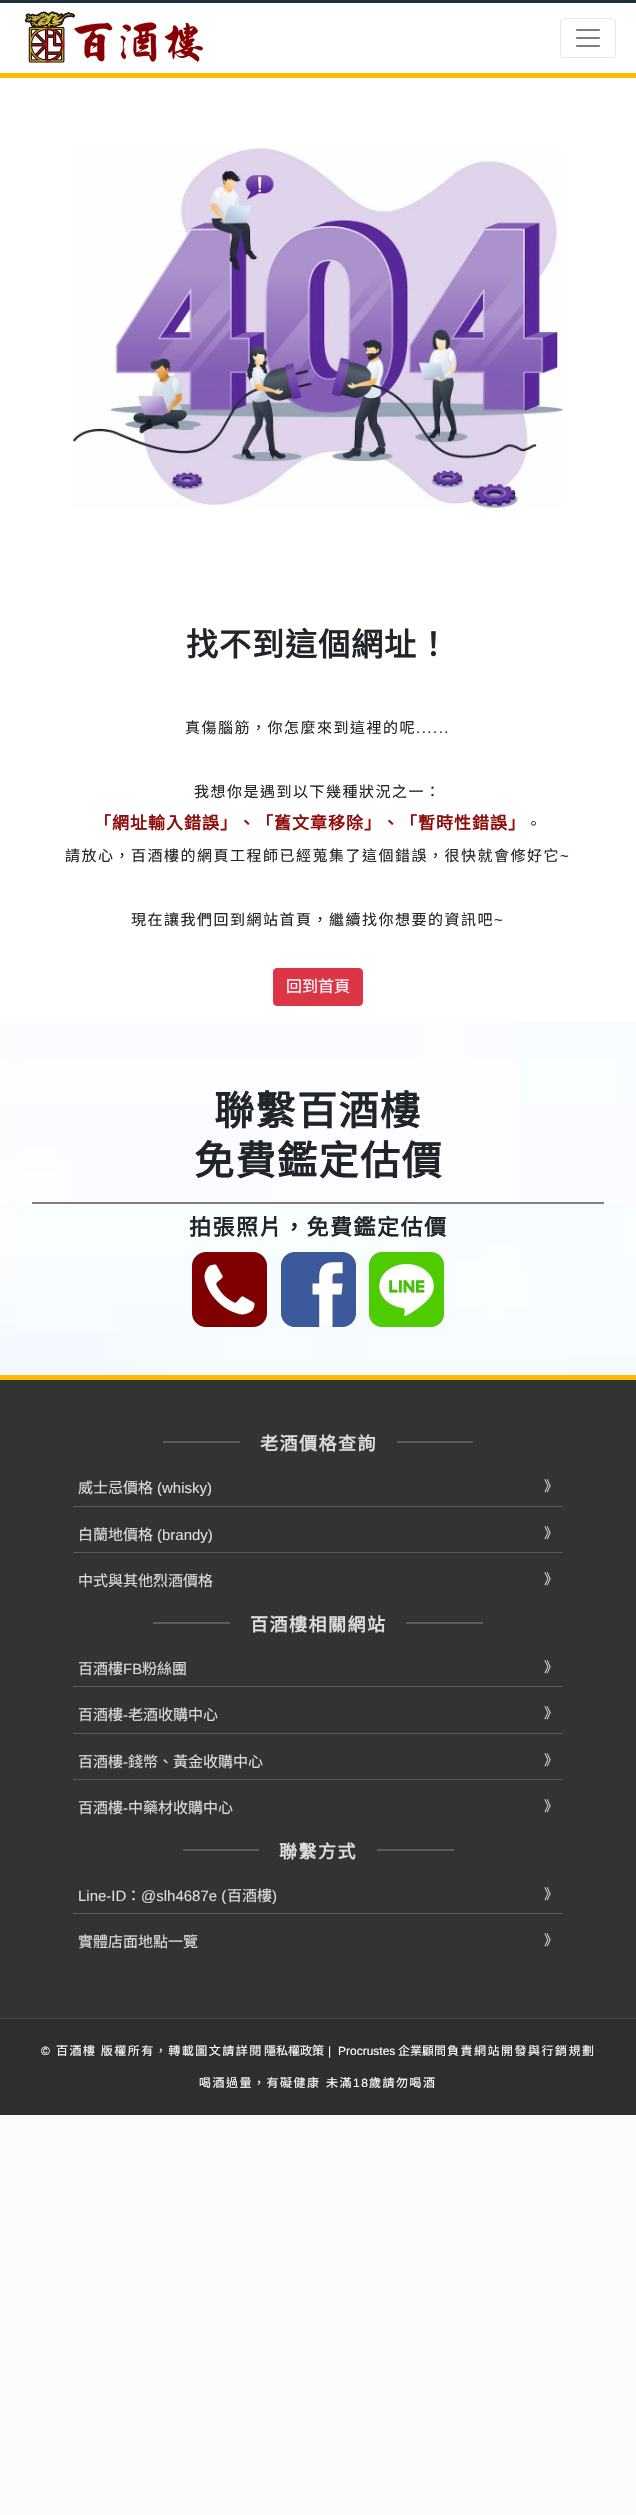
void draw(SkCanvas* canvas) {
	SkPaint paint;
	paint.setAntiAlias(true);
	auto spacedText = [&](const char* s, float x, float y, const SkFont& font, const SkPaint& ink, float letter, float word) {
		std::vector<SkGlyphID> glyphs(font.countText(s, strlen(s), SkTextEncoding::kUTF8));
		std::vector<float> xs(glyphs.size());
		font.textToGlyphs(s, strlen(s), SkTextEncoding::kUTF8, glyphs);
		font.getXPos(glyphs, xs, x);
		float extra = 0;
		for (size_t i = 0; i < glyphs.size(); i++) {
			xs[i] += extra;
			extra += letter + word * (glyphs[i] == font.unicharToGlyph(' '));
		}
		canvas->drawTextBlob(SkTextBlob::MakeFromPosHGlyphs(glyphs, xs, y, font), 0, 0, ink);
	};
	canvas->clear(0xfffbfbfb);
	paint.setColor(0xff1c313a);
	canvas->drawRect(SkRect::MakeXYWH(0, 0, 636, 3), paint);
	paint.setColor(0xffffffff);
	canvas->drawRect(SkRect::MakeXYWH(0, 3, 636, 70), paint);
	paint.setColor(0xffffbb01);
	canvas->drawRect(SkRect::MakeXYWH(0, 73, 636, 5), paint);
	canvas->drawImageRect(SkImages::DeferredFromEncodedData(SkData::MakeFromFileName("img1.png")), SkRect::MakeXYWH(25, 11, 179, 52), SkSamplingOptions());
	paint.setStroke(true);
	paint.setStrokeWidth(1);
	paint.setColor(0xffe6e6e6);
	canvas->drawRoundRect(SkRect::MakeXYWH(560.5, 18.5, 55, 39), 3.5, 3.5, paint);
	canvas->drawImageRect(SkImages::DeferredFromEncodedData(SkData::MakeFromFileName("img2.png")), SkRect::MakeXYWH(576, 29, 24, 18), SkSamplingOptions());
	paint.setStroke(false);
	paint.setColor(0xffffffff);
	canvas->drawRect(SkRect::MakeXYWH(0, 78, 636, 944), paint);
	canvas->drawImageRect(SkImages::DeferredFromEncodedData(SkData::MakeFromFileName("img3.png")), SkRect::MakeXYWH(72, 148, 492, 361), SkSamplingOptions());
	SkFont f1(fontMgr->matchFamilyStyle("Noto Sans CJK TC", SkFontStyle::Bold()), 32);
	f1.setSubpixel(true);
	paint.setColor(0xff212529);
	spacedText("找不到這個網址！", 186, 656, f1, paint, 1, 0);
	SkFont f2(fontMgr->matchFamilyStyle("Noto Sans CJK TC", SkFontStyle::Normal()), 15);
	f2.setSubpixel(true);
	spacedText("真傷腦筋，你怎麼來到這裡的呢", 185, 733, f2, paint, 1.5, 0);
	SkFont f3(fontMgr->matchFamilyStyle("Liberation Sans", SkFontStyle::Normal()), 15);
	f3.setSubpixel(true);
	spacedText("......", 416, 733, f3, paint, 1.5, 0);
	spacedText("我想你是遇到以下幾種狀況之一：", 194, 797, f2, paint, 1.5, 0);
	SkFont f4(fontMgr->matchFamilyStyle("Noto Sans CJK TC", SkFontStyle::Bold()), 17);
	f4.setSubpixel(true);
	paint.setColor(0xff900b09);
	spacedText("「網址輸入錯誤」、「舊文章移除」、「暫時性錯誤」", 94, 829, f4, paint, 1, 0);
	paint.setColor(0xff212529);
	spacedText("。", 526, 829, f2, paint, 1.5, 0);
	spacedText("請放心，百酒樓的網頁工程師已經蒐集了這個錯誤，很快就會修好它", 65, 861, f2, paint, 1.5, 0);
	spacedText("~", 560, 861, f3, paint, 1.5, 0);
	spacedText("現在讓我們回到網站首頁，繼續找你想要的資訊吧", 131, 925, f2, paint, 1.5, 0);
	spacedText("~", 494, 925, f3, paint, 1.5, 0);
	paint.setColor(0xffdc3545);
	canvas->drawRoundRect(SkRect::MakeXYWH(273.5, 968.5, 89, 37), 3.5, 3.5, paint);
	paint.setStroke(true);
	canvas->drawRoundRect(SkRect::MakeXYWH(273.5, 968.5, 89, 37), 3.5, 3.5, paint);
	SkFont f5(fontMgr->matchFamilyStyle("Noto Sans CJK TC", SkFontStyle::Normal()), 16);
	f5.setSubpixel(true);
	paint.setStroke(false);
	paint.setColor(0xffffffff);
	canvas->drawString("回到首頁", 286, 992, f5, paint);
	canvas->drawImageRect(SkImages::DeferredFromEncodedData(SkData::MakeFromFileName("img4.png")), SkRect::MakeXYWH(0, 1022, 636, 353), SkSamplingOptions());
	paint.setColor(0xff808080);
	canvas->drawRect(SkRect::MakeXYWH(32, 1202, 572, 2), paint);
	SkFont f6(fontMgr->matchFamilyStyle("Noto Sans CJK TC", SkFontStyle::Bold()), 40);
	f6.setSubpixel(true);
	paint.setColor(0xff212529);
	spacedText("聯繫百酒樓", 214, 1125, f6, paint, 1.5, 0);
	spacedText("免費鑑定估價", 194, 1175, f6, paint, 1.5, 0);
	SkFont f7(fontMgr->matchFamilyStyle("Noto Sans CJK TC", SkFontStyle::Bold()), 22);
	f7.setSubpixel(true);
	spacedText("拍張照片，免費鑑定估價", 189, 1235, f7, paint, 1.5, 0);
	canvas->drawImageRect(SkImages::DeferredFromEncodedData(SkData::MakeFromFileName("img5.png")), SkRect::MakeXYWH(192, 1252, 75, 75), SkSamplingOptions());
	canvas->drawImageRect(SkImages::DeferredFromEncodedData(SkData::MakeFromFileName("img6.png")), SkRect::MakeXYWH(281, 1252, 75, 75), SkSamplingOptions());
	canvas->drawImageRect(SkImages::DeferredFromEncodedData(SkData::MakeFromFileName("img7.png")), SkRect::MakeXYWH(369, 1252, 75, 75), SkSamplingOptions());
	paint.setColor(0xff333333);
	canvas->drawRect(SkRect::MakeXYWH(0, 1380, 636, 638), paint);
	paint.setColor(0xffffbb01);
	canvas->drawRect(SkRect::MakeXYWH(0, 1375, 636, 5), paint);
	paint.setColor(0xff5b5b5b);
	canvas->drawRect(SkRect::MakeXYWH(163, 1441, 77, 2), paint);
	SkFont f8(fontMgr->matchFamilyStyle("Noto Sans CJK TC", SkFontStyle::Bold()), 18);
	f8.setSubpixel(true);
	paint.setColor(0xffdddddd);
	spacedText("老酒價格查詢", 260, 1450, f8, paint, 1.5, 0);
	paint.setColor(0xff5b5b5b);
	canvas->drawRect(SkRect::MakeXYWH(397, 1441, 76, 2), paint);
	canvas->drawRect(SkRect::MakeXYWH(73, 1506, 490, 1), paint);
	paint.setColor(0xffdddddd);
	canvas->drawString("威士忌價格", 78, 1493, f2, paint);
	canvas->drawString("(whisky)", 157, 1493, f3, paint);
	SkFont f9(fontMgr->matchFamilyStyle("Noto Sans CJK TC", SkFontStyle::Normal()), 14);
	f9.setSubpixel(true);
	canvas->drawString("》", 544, 1491, f9, paint);
	paint.setColor(0xff5b5b5b);
	canvas->drawRect(SkRect::MakeXYWH(73, 1552, 490, 1), paint);
	paint.setColor(0xffdddddd);
	canvas->drawString("白蘭地價格", 78, 1540, f2, paint);
	canvas->drawString("(brandy)", 157, 1540, f3, paint);
	canvas->drawString("》", 544, 1538, f9, paint);
	canvas->drawString("中式與其他烈酒價格", 78, 1586, f2, paint);
	canvas->drawString("》", 544, 1584, f9, paint);
	paint.setColor(0xff5b5b5b);
	canvas->drawRect(SkRect::MakeXYWH(153, 1622, 77, 2), paint);
	paint.setColor(0xffdddddd);
	spacedText("百酒樓相關網站", 250, 1631, f8, paint, 1.5, 0);
	paint.setColor(0xff5b5b5b);
	canvas->drawRect(SkRect::MakeXYWH(406, 1622, 77, 2), paint);
	canvas->drawRect(SkRect::MakeXYWH(73, 1686, 490, 1), paint);
	paint.setColor(0xffdddddd);
	canvas->drawString("百酒樓", 78, 1674, f2, paint);
	canvas->drawString("FB", 123, 1674, f3, paint);
	canvas->drawString("粉絲團", 142, 1674, f2, paint);
	canvas->drawString("》", 544, 1672, f9, paint);
	paint.setColor(0xff5b5b5b);
	canvas->drawRect(SkRect::MakeXYWH(73, 1733, 490, 1), paint);
	paint.setColor(0xffdddddd);
	canvas->drawString("百酒樓", 78, 1720, f2, paint);
	canvas->drawString("-", 123, 1720, f3, paint);
	canvas->drawString("老酒收購中心", 128, 1720, f2, paint);
	canvas->drawString("》", 544, 1718, f9, paint);
	paint.setColor(0xff5b5b5b);
	canvas->drawRect(SkRect::MakeXYWH(73, 1779, 490, 1), paint);
	paint.setColor(0xffdddddd);
	canvas->drawString("百酒樓", 78, 1767, f2, paint);
	canvas->drawString("-", 123, 1767, f3, paint);
	canvas->drawString("錢幣、黃金收購中心", 128, 1767, f2, paint);
	canvas->drawString("》", 544, 1765, f9, paint);
	canvas->drawString("百酒樓", 78, 1813, f2, paint);
	canvas->drawString("-", 123, 1813, f3, paint);
	canvas->drawString("中藥材收購中心", 128, 1813, f2, paint);
	canvas->drawString("》", 544, 1811, f9, paint);
	paint.setColor(0xff5b5b5b);
	canvas->drawRect(SkRect::MakeXYWH(183, 1849, 76, 2), paint);
	paint.setColor(0xffdddddd);
	spacedText("聯繫方式", 279, 1858, f8, paint, 1.5, 0);
	paint.setColor(0xff5b5b5b);
	canvas->drawRect(SkRect::MakeXYWH(377, 1849, 77, 2), paint);
	canvas->drawRect(SkRect::MakeXYWH(73, 1913, 490, 1), paint);
	paint.setColor(0xffdddddd);
	canvas->drawString("Line-ID", 78, 1901, f3, paint);
	canvas->drawString("：", 126, 1901, f2, paint);
	canvas->drawString("@slh4687e (", 141, 1901, f3, paint);
	canvas->drawString("百酒樓", 227, 1901, f2, paint);
	canvas->drawString(")", 272, 1901, f3, paint);
	canvas->drawString("》", 544, 1899, f9, paint);
	canvas->drawString("實體店面地點一覽", 78, 1947, f2, paint);
	canvas->drawString("》", 544, 1945, f9, paint);
	paint.setColor(0xff2e2e2e);
	canvas->drawRect(SkRect::MakeXYWH(0, 2019, 636, 96), paint);
	paint.setColor(0xff444444);
	canvas->drawRect(SkRect::MakeXYWH(0, 2018, 636, 1), paint);
	SkFont f10(fontMgr->matchFamilyStyle("Liberation Sans", SkFontStyle::Normal()), 12);
	f10.setSubpixel(true);
	paint.setColor(0xffffffff);
	spacedText("©", 41, 2055, f10, paint, 1.5, 0);
	SkFont f11(fontMgr->matchFamilyStyle("Noto Sans CJK TC", SkFontStyle::Normal()), 12);
	f11.setSubpixel(true);
	spacedText("百酒樓 版權所有，轉載圖文請詳閱", 56, 2055, f11, paint, 1.5, 0);
	canvas->drawString("隱私權政策", 264, 2055, f11, paint);
	spacedText("|", 328, 2055, f10, paint, 1.5, 0);
	canvas->drawString("Procrustes", 338, 2055, f10, paint);
	canvas->drawString("企業顧問", 398, 2055, f11, paint);
	spacedText("負責網站開發與行銷規劃", 447, 2055, f11, paint, 1.5, 0);
	spacedText("喝酒過量，有礙健康", 199, 2087, f11, paint, 1.5, 0);
	spacedText("未滿", 326, 2087, f11, paint, 1.5, 0);
	spacedText("18", 353, 2087, f10, paint, 1.5, 0);
	spacedText("歲請勿喝酒", 369, 2087, f11, paint, 1.5, 0);
}
